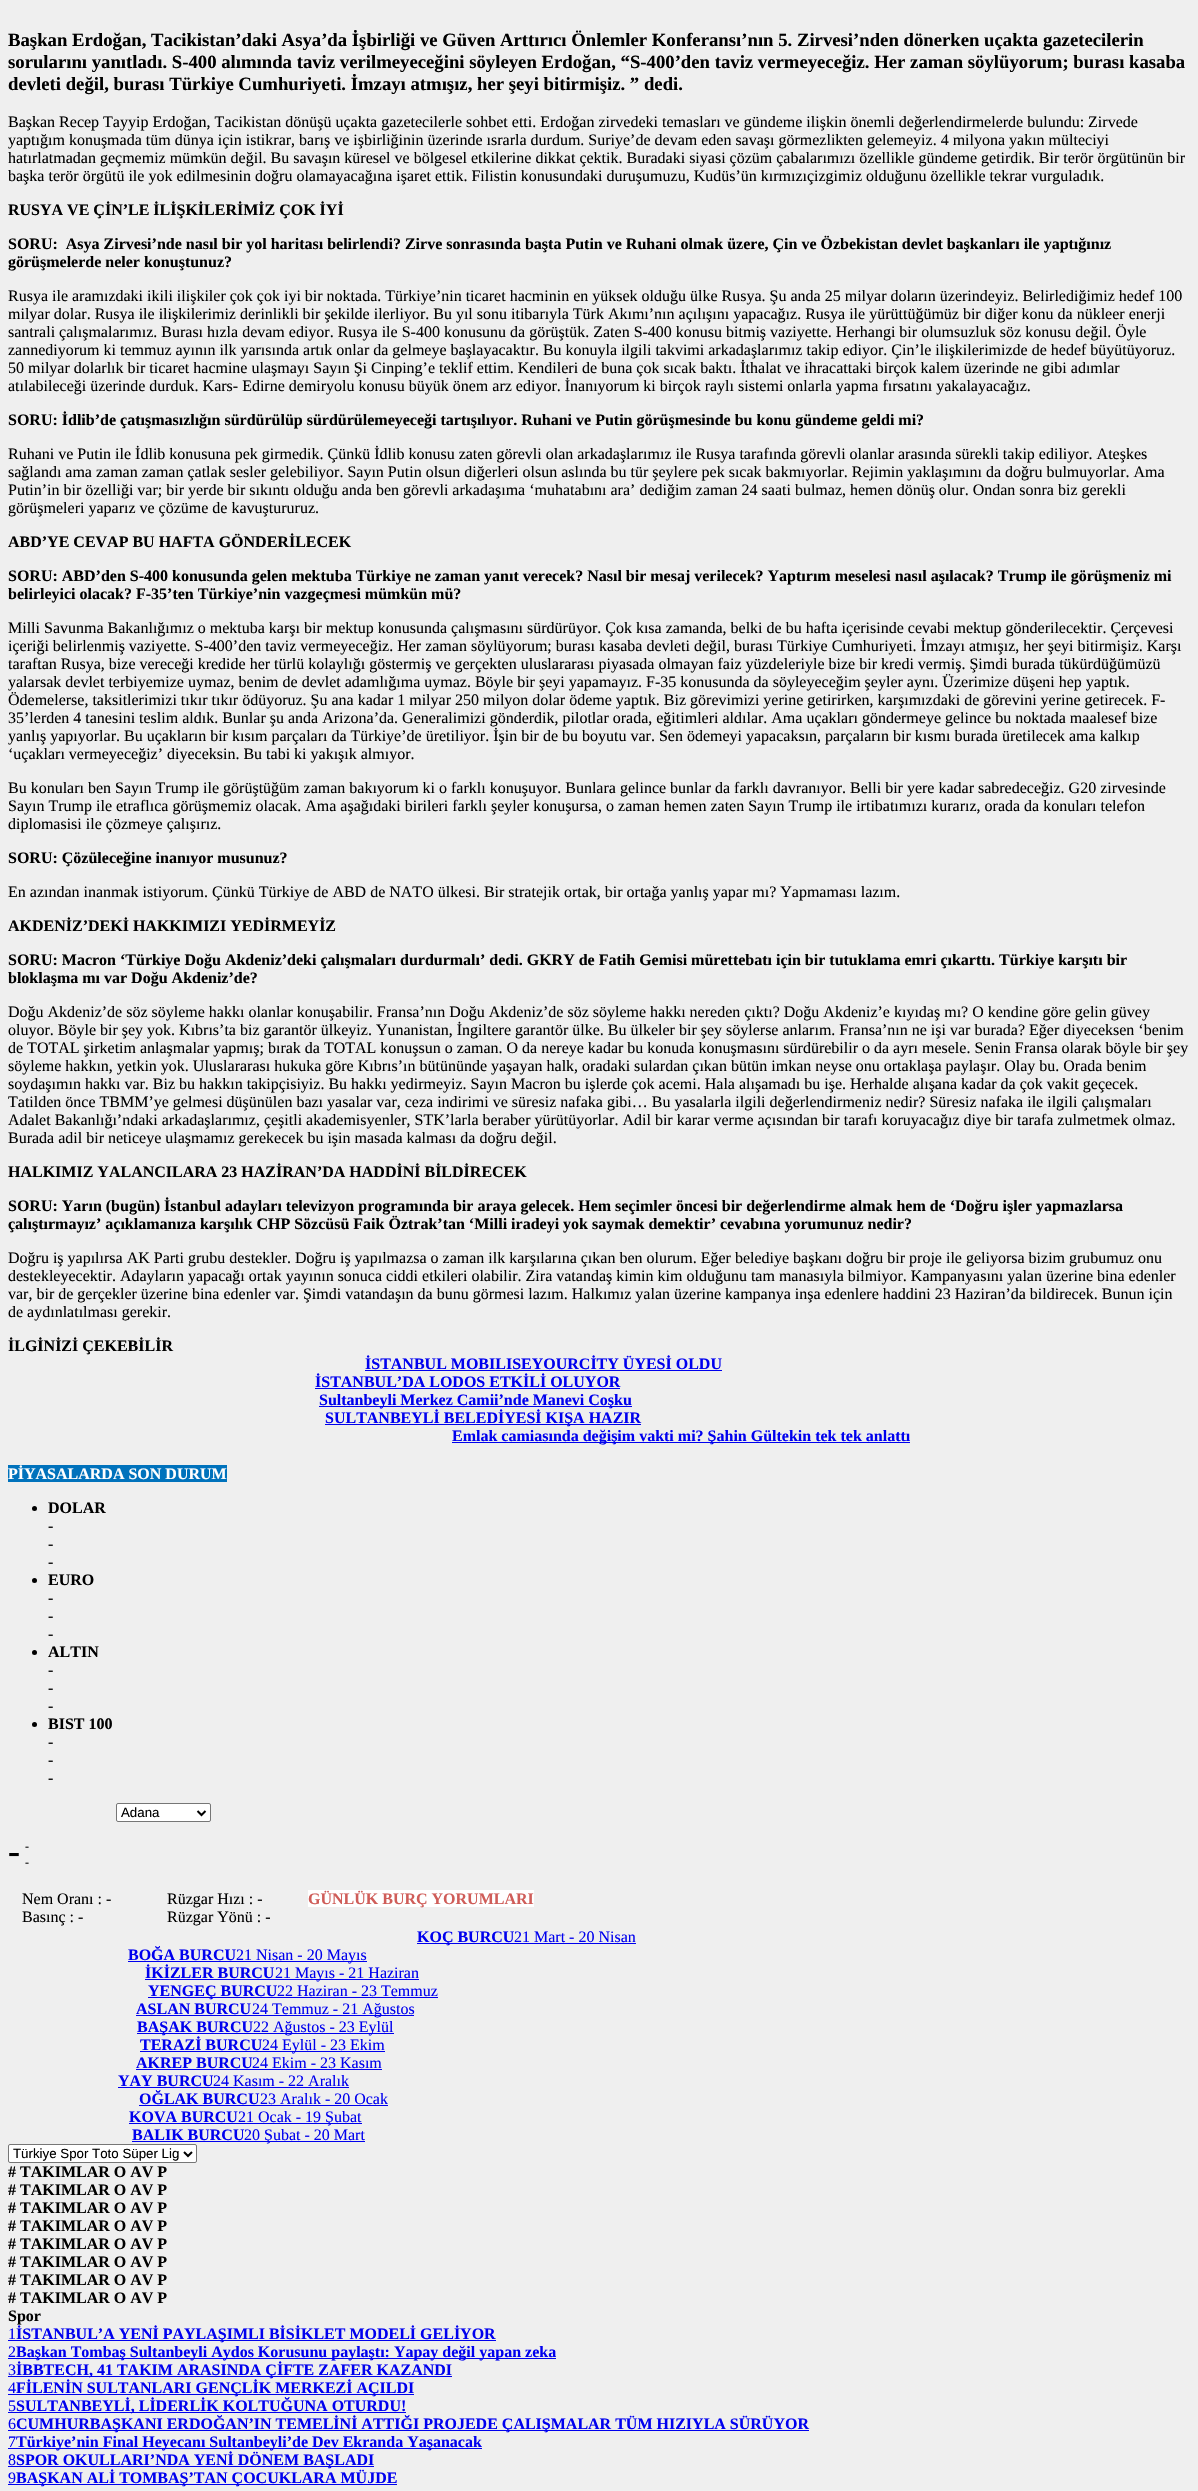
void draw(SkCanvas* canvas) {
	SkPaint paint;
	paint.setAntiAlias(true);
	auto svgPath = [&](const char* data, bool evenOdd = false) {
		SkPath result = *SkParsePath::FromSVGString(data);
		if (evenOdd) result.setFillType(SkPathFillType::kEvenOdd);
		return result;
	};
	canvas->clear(0xffefefef);
	SkFont f1(fontMgr->matchFamilyStyle("Liberation Serif", SkFontStyle::Bold()), 18.72);
	f1.setSubpixel(true);
	paint.setColor(0xff000000);
	canvas->drawString("Başkan Erdoğan, Tacikistan’daki Asya’da İşbirliği ve Güven Arttırıcı Önlemler Konferansı’nın 5. Zirvesi’nden dönerken uçakta gazetecilerin", 8, 46, f1, paint);
	canvas->drawString("sorularını yanıtladı. S-400 alımında taviz verilmeyeceğini söyleyen Erdoğan, “S-400’den taviz vermeyeceğiz. Her zaman söylüyorum; burası kasaba", 8, 68, f1, paint);
	canvas->drawString("devleti değil, burası Türkiye Cumhuriyeti. İmzayı atmışız, her şeyi bitirmişiz. ” dedi.", 8, 90, f1, paint);
	SkFont f2(fontMgr->matchFamilyStyle("Liberation Serif", SkFontStyle::Normal()), 16);
	f2.setSubpixel(true);
	canvas->drawString("Başkan Recep Tayyip Erdoğan, Tacikistan dönüşü uçakta gazetecilerle sohbet etti. Erdoğan zirvedeki temasları ve gündeme ilişkin önemli değerlendirmelerde bulundu: Zirvede", 8, 127, f2, paint);
	canvas->drawString("yaptığım konuşmada tüm dünya için istikrar, barış ve işbirliğinin üzerinde ısrarla durdum. Suriye’de devam eden savaşı görmezlikten gelemeyiz. 4 milyona yakın mülteciyi", 8, 145, f2, paint);
	canvas->drawString("hatırlatmadan geçmemiz mümkün değil. Bu savaşın küresel ve bölgesel etkilerine dikkat çektik. Buradaki siyasi çözüm çabalarımızı özellikle gündeme getirdik. Bir terör örgütünün bir", 8, 163, f2, paint);
	canvas->drawString("başka terör örgütü ile yok edilmesinin doğru olamayacağına işaret ettik. Filistin konusundaki duruşumuzu, Kudüs’ün kırmızıçizgimiz olduğunu özellikle tekrar vurguladık.", 8, 181, f2, paint);
	SkFont f3(fontMgr->matchFamilyStyle("Liberation Serif", SkFontStyle::Bold()), 16);
	f3.setSubpixel(true);
	canvas->drawString("RUSYA VE ÇİN’LE İLİŞKİLERİMİZ ÇOK İYİ", 8, 215, f3, paint);
	canvas->drawString("SORU:  Asya Zirvesi’nde nasıl bir yol haritası belirlendi? Zirve sonrasında başta Putin ve Ruhani olmak üzere, Çin ve Özbekistan devlet başkanları ile yaptığınız", 8, 249, f3, paint);
	canvas->drawString("görüşmelerde neler konuştunuz?", 8, 267, f3, paint);
	canvas->drawString("Rusya ile aramızdaki ikili ilişkiler çok çok iyi bir noktada. Türkiye’nin ticaret hacminin en yüksek olduğu ülke Rusya. Şu anda 25 milyar doların üzerindeyiz. Belirlediğimiz hedef 100", 8, 301, f2, paint);
	canvas->drawString("milyar dolar. Rusya ile ilişkilerimiz derinlikli bir şekilde ilerliyor. Bu yıl sonu itibarıyla Türk Akımı’nın açılışını yapacağız. Rusya ile yürüttüğümüz bir diğer konu da nükleer enerji", 8, 319, f2, paint);
	canvas->drawString("santrali çalışmalarımız. Burası hızla devam ediyor. Rusya ile S-400 konusunu da görüştük. Zaten S-400 konusu bitmiş vaziyette. Herhangi bir olumsuzluk söz konusu değil. Öyle", 8, 337, f2, paint);
	canvas->drawString("zannediyorum ki temmuz ayının ilk yarısında artık onlar da gelmeye başlayacaktır. Bu konuyla ilgili takvimi arkadaşlarımız takip ediyor. Çin’le ilişkilerimizde de hedef büyütüyoruz.", 8, 355, f2, paint);
	canvas->drawString("50 milyar dolarlık bir ticaret hacmine ulaşmayı Sayın Şi Cinping’e teklif ettim. Kendileri de buna çok sıcak baktı. İthalat ve ihracattaki birçok kalem üzerinde ne gibi adımlar", 8, 373, f2, paint);
	canvas->drawString("atılabileceği üzerinde durduk. Kars- Edirne demiryolu konusu büyük önem arz ediyor. İnanıyorum ki birçok raylı sistemi onlarla yapma fırsatını yakalayacağız.", 8, 391, f2, paint);
	canvas->drawString("SORU: İdlib’de çatışmasızlığın sürdürülüp sürdürülemeyeceği tartışılıyor. Ruhani ve Putin görüşmesinde bu konu gündeme geldi mi?", 8, 425, f3, paint);
	canvas->drawString("Ruhani ve Putin ile İdlib konusuna pek girmedik. Çünkü İdlib konusu zaten görevli olan arkadaşlarımız ile Rusya tarafında görevli olanlar arasında sürekli takip ediliyor. Ateşkes", 8, 459, f2, paint);
	canvas->drawString("sağlandı ama zaman zaman çatlak sesler gelebiliyor. Sayın Putin olsun diğerleri olsun aslında bu tür şeylere pek sıcak bakmıyorlar. Rejimin yaklaşımını da doğru bulmuyorlar. Ama", 8, 477, f2, paint);
	canvas->drawString("Putin’in bir özelliği var; bir yerde bir sıkıntı olduğu anda ben görevli arkadaşıma ‘muhatabını ara’ dediğim zaman 24 saati bulmaz, hemen dönüş olur. Ondan sonra biz gerekli", 8, 495, f2, paint);
	canvas->drawString("görüşmeleri yaparız ve çözüme de kavuştururuz.", 8, 513, f2, paint);
	canvas->drawString("ABD’YE CEVAP BU HAFTA GÖNDERİLECEK", 8, 547, f3, paint);
	canvas->drawString("SORU: ABD’den S-400 konusunda gelen mektuba Türkiye ne zaman yanıt verecek? Nasıl bir mesaj verilecek? Yaptırım meselesi nasıl aşılacak? Trump ile görüşmeniz mi", 8, 581, f3, paint);
	canvas->drawString("belirleyici olacak? F-35’ten Türkiye’nin vazgeçmesi mümkün mü?", 8, 599, f3, paint);
	canvas->drawString("Milli Savunma Bakanlığımız o mektuba karşı bir mektup konusunda çalışmasını sürdürüyor. Çok kısa zamanda, belki de bu hafta içerisinde cevabi mektup gönderilecektir. Çerçevesi", 8, 633, f2, paint);
	canvas->drawString("içeriği belirlenmiş vaziyette. S-400’den taviz vermeyeceğiz. Her zaman söylüyorum; burası kasaba devleti değil, burası Türkiye Cumhuriyeti. İmzayı atmışız, her şeyi bitirmişiz. Karşı", 8, 651, f2, paint);
	canvas->drawString("taraftan Rusya, bize vereceği kredide her türlü kolaylığı göstermiş ve gerçekten uluslararası piyasada olmayan faiz yüzdeleriyle bize bir kredi vermiş. Şimdi burada tükürdüğümüzü", 8, 669, f2, paint);
	canvas->drawString("yalarsak devlet terbiyemize uymaz, benim de devlet adamlığıma uymaz. Böyle bir şeyi yapamayız. F-35 konusunda da söyleyeceğim şeyler aynı. Üzerimize düşeni hep yaptık.", 8, 687, f2, paint);
	canvas->drawString("Ödemelerse, taksitlerimizi tıkır tıkır ödüyoruz. Şu ana kadar 1 milyar 250 milyon dolar ödeme yaptık. Biz görevimizi yerine getirirken, karşımızdaki de görevini yerine getirecek. F-", 8, 705, f2, paint);
	canvas->drawString("35’lerden 4 tanesini teslim aldık. Bunlar şu anda Arizona’da. Generalimizi gönderdik, pilotlar orada, eğitimleri aldılar. Ama uçakları göndermeye gelince bu noktada maalesef bize", 8, 723, f2, paint);
	canvas->drawString("yanlış yapıyorlar. Bu uçakların bir kısım parçaları da Türkiye’de üretiliyor. İşin bir de bu boyutu var. Sen ödemeyi yapacaksın, parçaların bir kısmı burada üretilecek ama kalkıp", 8, 741, f2, paint);
	canvas->drawString("‘uçakları vermeyeceğiz’ diyeceksin. Bu tabi ki yakışık almıyor.", 8, 759, f2, paint);
	canvas->drawString("Bu konuları ben Sayın Trump ile görüştüğüm zaman bakıyorum ki o farklı konuşuyor. Bunlara gelince bunlar da farklı davranıyor. Belli bir yere kadar sabredeceğiz. G20 zirvesinde", 8, 793, f2, paint);
	canvas->drawString("Sayın Trump ile etraflıca görüşmemiz olacak. Ama aşağıdaki birileri farklı şeyler konuşursa, o zaman hemen zaten Sayın Trump ile irtibatımızı kurarız, orada da konuları telefon", 8, 811, f2, paint);
	canvas->drawString("diplomasisi ile çözmeye çalışırız.", 8, 829, f2, paint);
	canvas->drawString("SORU: Çözüleceğine inanıyor musunuz?", 8, 863, f3, paint);
	canvas->drawString("En azından inanmak istiyorum. Çünkü Türkiye de ABD de NATO ülkesi. Bir stratejik ortak, bir ortağa yanlış yapar mı? Yapmaması lazım.", 8, 897, f2, paint);
	canvas->drawString("AKDENİZ’DEKİ HAKKIMIZI YEDİRMEYİZ", 8, 931, f3, paint);
	canvas->drawString("SORU: Macron ‘Türkiye Doğu Akdeniz’deki çalışmaları durdurmalı’ dedi. GKRY de Fatih Gemisi mürettebatı için bir tutuklama emri çıkarttı. Türkiye karşıtı bir", 8, 965, f3, paint);
	canvas->drawString("bloklaşma mı var Doğu Akdeniz’de?", 8, 983, f3, paint);
	canvas->drawString("Doğu Akdeniz’de söz söyleme hakkı olanlar konuşabilir. Fransa’nın Doğu Akdeniz’de söz söyleme hakkı nereden çıktı? Doğu Akdeniz’e kıyıdaş mı? O kendine göre gelin güvey", 8, 1017, f2, paint);
	canvas->drawString("oluyor. Böyle bir şey yok. Kıbrıs’ta biz garantör ülkeyiz. Yunanistan, İngiltere garantör ülke. Bu ülkeler bir şey söylerse anlarım. Fransa’nın ne işi var burada? Eğer diyeceksen ‘benim", 8, 1035, f2, paint);
	canvas->drawString("de TOTAL şirketim anlaşmalar yapmış; bırak da TOTAL konuşsun o zaman. O da nereye kadar bu konuda konuşmasını sürdürebilir o da ayrı mesele. Senin Fransa olarak böyle bir şey", 8, 1053, f2, paint);
	canvas->drawString("söyleme hakkın, yetkin yok. Uluslararası hukuka göre Kıbrıs’ın bütününde yaşayan halk, oradaki sulardan çıkan bütün imkan neyse onu ortaklaşa paylaşır. Olay bu. Orada benim", 8, 1071, f2, paint);
	canvas->drawString("soydaşımın hakkı var. Biz bu hakkın takipçisiyiz. Bu hakkı yedirmeyiz. Sayın Macron bu işlerde çok acemi. Hala alışamadı bu işe. Herhalde alışana kadar da çok vakit geçecek.", 8, 1089, f2, paint);
	canvas->drawString("Tatilden önce TBMM’ye gelmesi düşünülen bazı yasalar var, ceza indirimi ve süresiz nafaka gibi… Bu yasalarla ilgili değerlendirmeniz nedir? Süresiz nafaka ile ilgili çalışmaları", 8, 1107, f2, paint);
	canvas->drawString("Adalet Bakanlığı’ndaki arkadaşlarımız, çeşitli akademisyenler, STK’larla beraber yürütüyorlar. Adil bir karar verme açısından bir tarafı koruyacağız diye bir tarafa zulmetmek olmaz.", 8, 1125, f2, paint);
	canvas->drawString("Burada adil bir neticeye ulaşmamız gerekecek bu işin masada kalması da doğru değil.", 8, 1143, f2, paint);
	canvas->drawString("HALKIMIZ YALANCILARA 23 HAZİRAN’DA HADDİNİ BİLDİRECEK", 8, 1177, f3, paint);
	canvas->drawString("SORU: Yarın (bugün) İstanbul adayları televizyon programında bir araya gelecek. Hem seçimler öncesi bir değerlendirme almak hem de ‘Doğru işler yapmazlarsa", 8, 1211, f3, paint);
	canvas->drawString("çalıştırmayız’ açıklamanıza karşılık CHP Sözcüsü Faik Öztrak’tan ‘Milli iradeyi yok saymak demektir’ cevabına yorumunuz nedir?", 8, 1229, f3, paint);
	canvas->drawString("Doğru iş yapılırsa AK Parti grubu destekler. Doğru iş yapılmazsa o zaman ilk karşılarına çıkan ben olurum. Eğer belediye başkanı doğru bir proje ile geliyorsa bizim grubumuz onu", 8, 1263, f2, paint);
	canvas->drawString("destekleyecektir. Adayların yapacağı ortak yayının sonuca ciddi etkileri olabilir. Zira vatandaş kimin kim olduğunu tam manasıyla bilmiyor. Kampanyasını yalan üzerine bina edenler", 8, 1281, f2, paint);
	canvas->drawString("var, bir de gerçekler üzerine bina edenler var. Şimdi vatandaşın da bunu görmesi lazım. Halkımız yalan üzerine kampanya inşa edenlere haddini 23 Haziran’da bildirecek. Bunun için", 8, 1299, f2, paint);
	canvas->drawString("de aydınlatılması gerekir.", 8, 1317, f2, paint);
	canvas->drawString("İLGİNİZİ ÇEKEBİLİR", 8, 1351, f3, paint);
	paint.setColor(0xff0000ee);
	canvas->drawString("İSTANBUL MOBILISEYOURCİTY ÜYESİ OLDU", 365, 1369, f3, paint);
	canvas->drawRect(SkRect::MakeXYWH(365, 1370, 357, 1), paint);
	canvas->drawString("İSTANBUL’DA LODOS ETKİLİ OLUYOR", 315, 1387, f3, paint);
	canvas->drawRect(SkRect::MakeXYWH(315, 1388, 305, 1), paint);
	canvas->drawRect(SkRect::MakeXYWH(319, 1406, 313, 1), paint);
	canvas->drawString("Sultanbeyli Merkez Camii’nde Manevi Coşku", 319, 1405, f3, paint);
	canvas->drawRect(SkRect::MakeXYWH(325, 1424, 316, 1), paint);
	canvas->drawString("SULTANBEYLİ BELEDİYESİ KIŞA HAZIR", 325, 1423, f3, paint);
	canvas->drawRect(SkRect::MakeXYWH(452, 1442, 458, 1), paint);
	canvas->drawString("Emlak camiasında değişim vakti mi? Şahin Gültekin tek tek anlattı", 452, 1441, f3, paint);
	paint.setColor(0xff0072bc);
	canvas->drawRect(SkRect::MakeXYWH(8, 1465, 219, 17), paint);
	paint.setColor(0xffffffff);
	canvas->drawString("PİYASALARDA SON DURUM", 8, 1479, f3, paint);
	paint.setColor(0xff000000);
	canvas->drawCircle(34.5, 1508.5, 2.5, paint);
	canvas->drawString("DOLAR", 48, 1513, f3, paint);
	canvas->drawString("-", 48, 1531, f2, paint);
	canvas->drawString("-", 48, 1549, f2, paint);
	canvas->drawString("-", 48, 1567, f2, paint);
	canvas->drawCircle(34.5, 1580.5, 2.5, paint);
	canvas->drawString("EURO", 48, 1585, f3, paint);
	canvas->drawString("-", 48, 1603, f2, paint);
	canvas->drawString("-", 48, 1621, f2, paint);
	canvas->drawString("-", 48, 1639, f2, paint);
	canvas->drawCircle(34.5, 1652.5, 2.5, paint);
	canvas->drawString("ALTIN", 48, 1657, f3, paint);
	canvas->drawString("-", 48, 1675, f2, paint);
	canvas->drawString("-", 48, 1693, f2, paint);
	canvas->drawString("-", 48, 1711, f2, paint);
	canvas->drawCircle(34.5, 1724.5, 2.5, paint);
	canvas->drawString("BIST 100", 48, 1729, f3, paint);
	canvas->drawString("-", 48, 1747, f2, paint);
	canvas->drawString("-", 48, 1765, f2, paint);
	canvas->drawString("-", 48, 1783, f2, paint);
	paint.setColor(0xffffffff);
	canvas->drawRoundRect(SkRect::MakeXYWH(116.5, 1803.5, 94, 18), 1.5, 1.5, paint);
	paint.setStroke(true);
	paint.setStrokeWidth(1);
	paint.setColor(0xff767676);
	canvas->drawRoundRect(SkRect::MakeXYWH(116.5, 1803.5, 94, 18), 1.5, 1.5, paint);
	paint.setStrokeWidth(2);
	paint.setColor(0xff000000);
	canvas->drawPath(svgPath("M197.5 1811L201.5 1815L205.5 1811"), paint);
	SkFont f4(fontMgr->matchFamilyStyle("Liberation Sans", SkFontStyle::Normal()), 13.3);
	f4.setSubpixel(true);
	paint.setStroke(false);
	canvas->drawString("Adana", 121, 1817, f4, paint);
	SkFont f5(fontMgr->matchFamilyStyle("Liberation Serif", SkFontStyle::Normal()), 12);
	f5.setSubpixel(true);
	canvas->drawString("-", 25, 1850, f5, paint);
	SkFont f6(fontMgr->matchFamilyStyle("Liberation Serif", SkFontStyle::Bold()), 36);
	f6.setSubpixel(true);
	canvas->drawString("-", 8, 1863, f6, paint);
	canvas->drawString("-", 25, 1866, f5, paint);
	canvas->drawString("Nem Oranı : -", 22, 1904, f2, paint);
	canvas->drawString("Basınç : -", 22, 1922, f2, paint);
	canvas->drawString("Rüzgar Hızı : -", 167, 1904, f2, paint);
	canvas->drawString("Rüzgar Yönü : -", 167, 1922, f2, paint);
	paint.setColor(0xffffffff);
	canvas->drawRect(SkRect::MakeXYWH(308, 1890, 226, 17), paint);
	paint.setColor(0xffcf5d59);
	canvas->drawString("GÜNLÜK BURÇ YORUMLARI", 308, 1904, f3, paint);
	paint.setColor(0xff0000ee);
	canvas->drawRect(SkRect::MakeXYWH(417, 1943, 219, 1), paint);
	canvas->drawString("KOÇ BURCU", 417, 1942, f3, paint);
	canvas->drawString("21 Mart - 20 Nisan", 514, 1942, f2, paint);
	canvas->drawString("BOĞA BURCU", 128, 1960, f3, paint);
	canvas->drawRect(SkRect::MakeXYWH(128, 1961, 239, 1), paint);
	canvas->drawString("21 Nisan - 20 Mayıs", 236, 1960, f2, paint);
	canvas->drawString("İKİZLER BURCU", 145, 1978, f3, paint);
	canvas->drawRect(SkRect::MakeXYWH(145, 1979, 274, 1), paint);
	canvas->drawString("21 Mayıs - 21 Haziran", 275, 1978, f2, paint);
	canvas->drawRect(SkRect::MakeXYWH(148, 1997, 290, 1), paint);
	canvas->drawString("YENGEÇ BURCU", 148, 1996, f3, paint);
	canvas->drawString("22 Haziran - 23 Temmuz", 277, 1996, f2, paint);
	canvas->drawString("ASLAN BURCU", 136, 2014, f3, paint);
	canvas->drawRect(SkRect::MakeXYWH(136, 2015, 278, 1), paint);
	canvas->drawString("24 Temmuz - 21 Ağustos", 252, 2014, f2, paint);
	canvas->drawRect(SkRect::MakeXYWH(137, 2033, 257, 1), paint);
	canvas->drawString("BAŞAK BURCU", 137, 2032, f3, paint);
	canvas->drawString("22 Ağustos - 23 Eylül", 253, 2032, f2, paint);
	canvas->drawString("TERAZİ BURCU", 140, 2050, f3, paint);
	canvas->drawRect(SkRect::MakeXYWH(140, 2051, 245, 1), paint);
	canvas->drawString("24 Eylül - 23 Ekim", 262, 2050, f2, paint);
	canvas->drawString("AKREP BURCU", 136, 2068, f3, paint);
	canvas->drawRect(SkRect::MakeXYWH(136, 2069, 246, 1), paint);
	canvas->drawString("24 Ekim - 23 Kasım", 252, 2068, f2, paint);
	canvas->drawString("YAY BURCU", 118, 2086, f3, paint);
	canvas->drawRect(SkRect::MakeXYWH(118, 2087, 231, 1), paint);
	canvas->drawString("24 Kasım - 22 Aralık", 213, 2086, f2, paint);
	canvas->drawString("OĞLAK BURCU", 139, 2104, f3, paint);
	canvas->drawString("23 Aralık - 20 Ocak", 260, 2104, f2, paint);
	canvas->drawRect(SkRect::MakeXYWH(139, 2105, 249, 1), paint);
	canvas->drawString("KOVA BURCU", 129, 2122, f3, paint);
	canvas->drawRect(SkRect::MakeXYWH(129, 2123, 233, 1), paint);
	canvas->drawString("21 Ocak - 19 Şubat", 238, 2122, f2, paint);
	canvas->drawString("BALIK BURCU", 132, 2140, f3, paint);
	canvas->drawRect(SkRect::MakeXYWH(132, 2141, 233, 1), paint);
	canvas->drawString("20 Şubat - 20 Mart", 244, 2140, f2, paint);
	paint.setColor(0xffffffff);
	canvas->drawRoundRect(SkRect::MakeXYWH(8.5, 2144.5, 188, 18), 1.5, 1.5, paint);
	paint.setStroke(true);
	paint.setStrokeWidth(1);
	paint.setColor(0xff767676);
	canvas->drawRoundRect(SkRect::MakeXYWH(8.5, 2144.5, 188, 18), 1.5, 1.5, paint);
	paint.setStrokeWidth(2);
	paint.setColor(0xff000000);
	canvas->drawPath(svgPath("M184 2152L188 2156L192 2152"), paint);
	paint.setStroke(false);
	canvas->drawString("Türkiye Spor Toto Süper Lig", 13, 2158, f4, paint);
	canvas->drawString("# TAKIMLAR O AV P", 8, 2177, f3, paint);
	canvas->drawString("# TAKIMLAR O AV P", 8, 2195, f3, paint);
	canvas->drawString("# TAKIMLAR O AV P", 8, 2213, f3, paint);
	canvas->drawString("# TAKIMLAR O AV P", 8, 2231, f3, paint);
	canvas->drawString("# TAKIMLAR O AV P", 8, 2249, f3, paint);
	canvas->drawString("# TAKIMLAR O AV P", 8, 2267, f3, paint);
	canvas->drawString("# TAKIMLAR O AV P", 8, 2285, f3, paint);
	canvas->drawString("# TAKIMLAR O AV P", 8, 2303, f3, paint);
	canvas->drawString("Spor", 8, 2321, f3, paint);
	paint.setColor(0xff0000ee);
	canvas->drawString("1", 8, 2339, f2, paint);
	canvas->drawRect(SkRect::MakeXYWH(8, 2340, 488, 1), paint);
	canvas->drawString("İSTANBUL’A YENİ PAYLAŞIMLI BİSİKLET MODELİ GELİYOR", 16, 2339, f3, paint);
	canvas->drawString("2", 8, 2357, f2, paint);
	canvas->drawRect(SkRect::MakeXYWH(8, 2358, 548, 1), paint);
	canvas->drawString("Başkan Tombaş Sultanbeyli Aydos Korusunu paylaştı: Yapay değil yapan zeka", 16, 2357, f3, paint);
	canvas->drawString("3", 8, 2375, f2, paint);
	canvas->drawRect(SkRect::MakeXYWH(8, 2376, 444, 1), paint);
	canvas->drawString("İBBTECH, 41 TAKIM ARASINDA ÇİFTE ZAFER KAZANDI", 16, 2375, f3, paint);
	canvas->drawString("4", 8, 2393, f2, paint);
	canvas->drawRect(SkRect::MakeXYWH(8, 2394, 406, 1), paint);
	canvas->drawString("FİLENİN SULTANLARI GENÇLİK MERKEZİ AÇILDI", 16, 2393, f3, paint);
	canvas->drawString("5", 8, 2411, f2, paint);
	canvas->drawRect(SkRect::MakeXYWH(8, 2412, 398, 1), paint);
	canvas->drawString("SULTANBEYLİ, LİDERLİK KOLTUĞUNA OTURDU!", 16, 2411, f3, paint);
	canvas->drawString("6", 8, 2429, f2, paint);
	canvas->drawRect(SkRect::MakeXYWH(8, 2430, 801, 1), paint);
	canvas->drawString("CUMHURBAŞKANI ERDOĞAN’IN TEMELİNİ ATTIĞI PROJEDE ÇALIŞMALAR TÜM HIZIYLA SÜRÜYOR", 16, 2429, f3, paint);
	canvas->drawString("7", 8, 2447, f2, paint);
	canvas->drawRect(SkRect::MakeXYWH(8, 2448, 474, 1), paint);
	canvas->drawString("Türkiye’nin Final Heyecanı Sultanbeyli’de Dev Ekranda Yaşanacak", 16, 2447, f3, paint);
	canvas->drawString("8", 8, 2465, f2, paint);
	canvas->drawRect(SkRect::MakeXYWH(8, 2466, 366, 1), paint);
	canvas->drawString("SPOR OKULLARI’NDA YENİ DÖNEM BAŞLADI", 16, 2465, f3, paint);
	canvas->drawString("9", 8, 2483, f2, paint);
	canvas->drawRect(SkRect::MakeXYWH(8, 2484, 389, 1), paint);
	canvas->drawString("BAŞKAN ALİ TOMBAŞ’TAN ÇOCUKLARA MÜJDE", 16, 2483, f3, paint);
}
